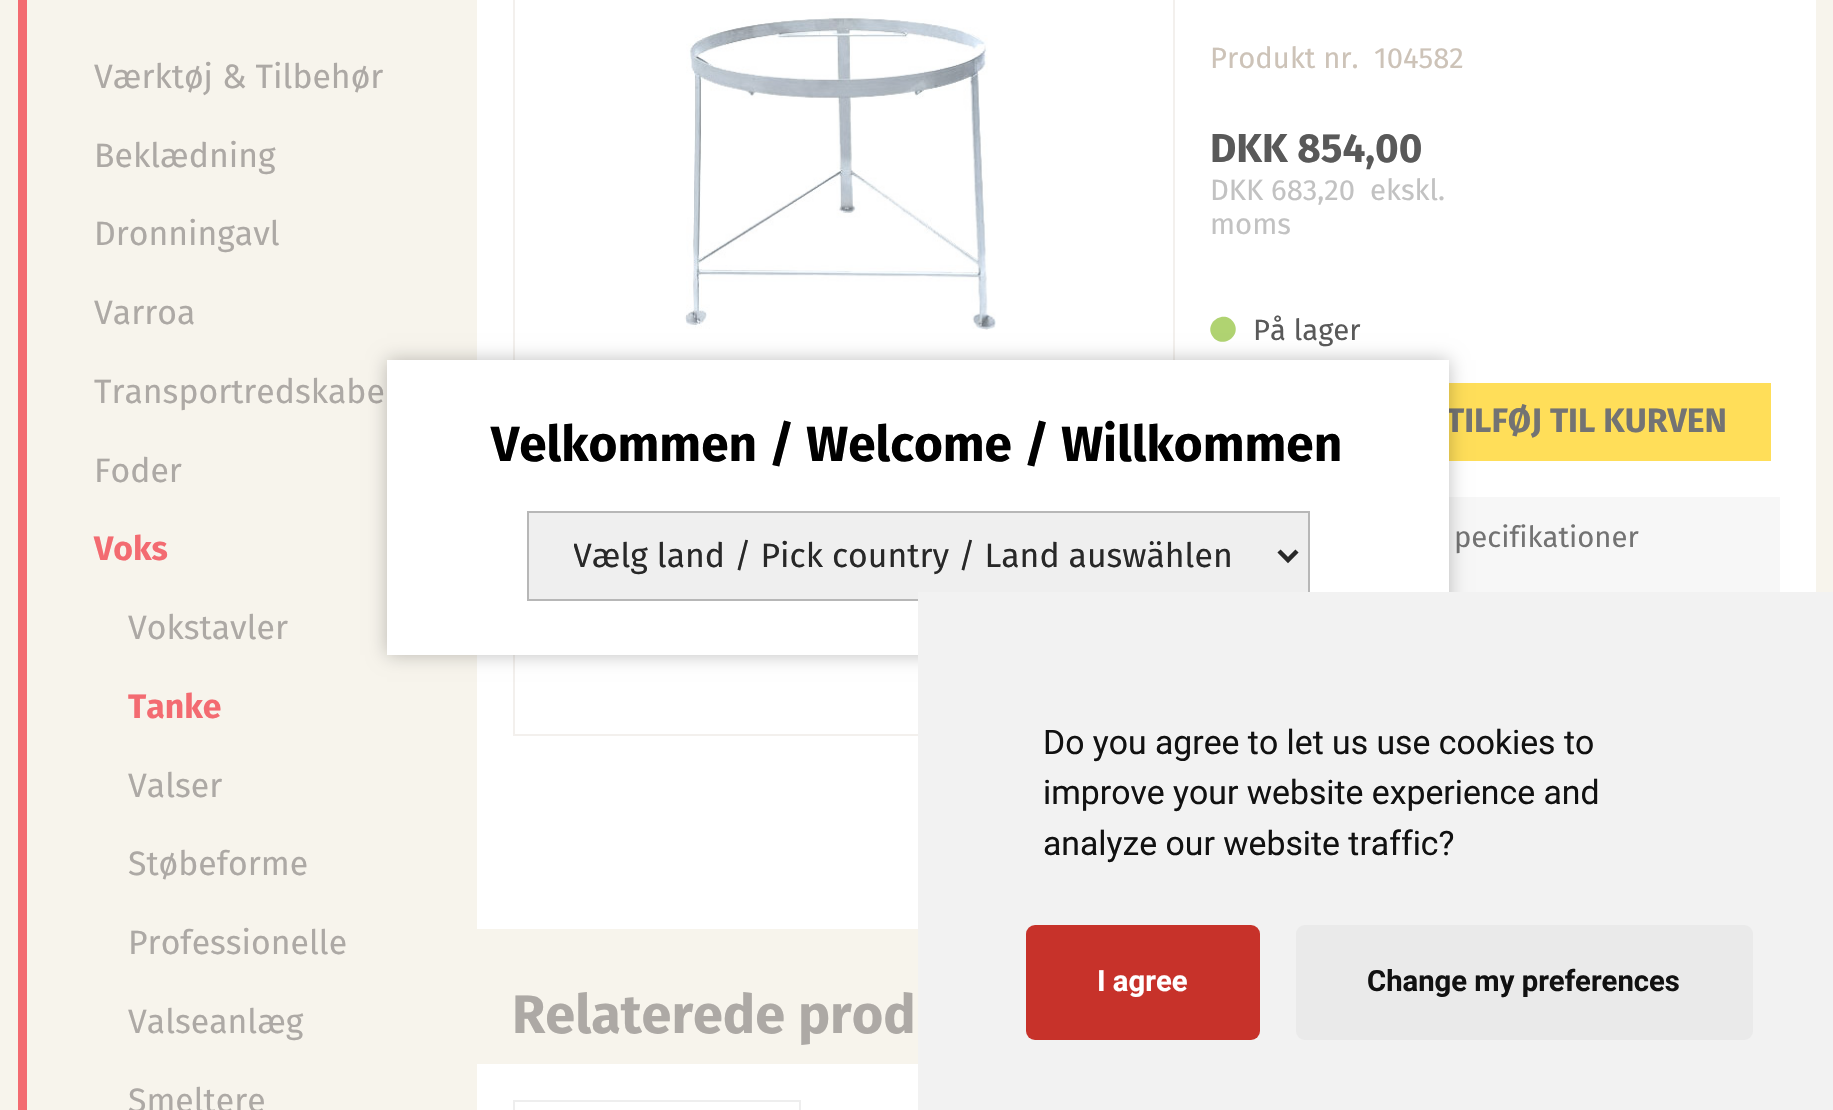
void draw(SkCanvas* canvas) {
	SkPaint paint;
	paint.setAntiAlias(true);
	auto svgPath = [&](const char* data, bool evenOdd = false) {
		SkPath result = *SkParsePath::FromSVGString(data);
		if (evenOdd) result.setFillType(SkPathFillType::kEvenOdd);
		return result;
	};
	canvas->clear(0xfff7f4ec);
	paint.setColor(0xfff36b71);
	canvas->drawRect(SkRect::MakeXYWH(18, 0, 9, 1110), paint);
	SkFont f1(fontMgr->matchFamilyStyle("Fira Sans", SkFontStyle::Normal()), 33.75);
	f1.setSubpixel(true);
	paint.setColor(0xffada9a5);
	canvas->drawString("Værktøj & Tilbehør", 94, 88, f1, paint);
	canvas->drawString("Beklædning", 94, 167, f1, paint);
	canvas->drawString("Dronningavl", 94, 245, f1, paint);
	canvas->drawString("Varroa", 94, 324, f1, paint);
	canvas->drawString("Transportredskabe", 94, 403, f1, paint);
	canvas->drawString("Foder", 94, 482, f1, paint);
	SkFont f2(fontMgr->matchFamilyStyle("Fira Sans", SkFontStyle::Bold()), 33.75);
	f2.setSubpixel(true);
	paint.setColor(0xfff36b71);
	canvas->drawString("Voks", 94, 560, f2, paint);
	paint.setColor(0xffada9a5);
	canvas->drawString("Vokstavler", 128, 639, f1, paint);
	paint.setColor(0xfff36b71);
	canvas->drawString("Tanke", 128, 718, f2, paint);
	paint.setColor(0xffada9a5);
	canvas->drawString("Valser", 128, 797, f1, paint);
	canvas->drawString("Støbeforme", 128, 875, f1, paint);
	canvas->drawString("Professionelle", 128, 954, f1, paint);
	canvas->drawString("Valseanlæg", 128, 1033, f1, paint);
	canvas->drawString("Smeltere", 128, 1112, f1, paint);
	paint.setColor(0xffffffff);
	canvas->drawRect(SkRect::MakeXYWH(477, 0, 1339, 929), paint);
	paint.setStroke(true);
	paint.setStrokeWidth(2);
	paint.setColor(0xfff3f0ed);
	canvas->drawRect(SkRect::MakeXYWH(514, -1, 660, 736), paint);
	canvas->drawImageRect(SkImages::DeferredFromEncodedData(SkData::MakeFromFileName("img1.png")), SkRect::MakeXYWH(684, 12, 312, 318), SkSamplingOptions());
	SkFont f3(fontMgr->matchFamilyStyle("Fira Sans", SkFontStyle::Normal()), 29.25);
	f3.setSubpixel(true);
	paint.setStroke(false);
	paint.setColor(0xffcdc3b8);
	canvas->drawString("Produkt nr.", 1210, 68, f3, paint);
	canvas->drawString("104582", 1374, 68, f3, paint);
	SkFont f4(fontMgr->matchFamilyStyle("Fira Sans", SkFontStyle::Bold()), 40.5);
	f4.setSubpixel(true);
	paint.setColor(0xff595959);
	canvas->drawString("DKK 854,00", 1210, 162, f4, paint);
	paint.setColor(0xffc2c2c2);
	canvas->drawString("DKK 683,20", 1210, 200, f3, paint);
	canvas->drawString("ekskl.", 1370, 200, f3, paint);
	canvas->drawString("moms", 1210, 234, f3, paint);
	paint.setColor(0xffb0d371);
	canvas->drawPath(svgPath("M1234 323C1242 337 1220.5 350 1212 335.5C1204 321.5 1225.5 308.5 1234 323Z"), paint);
	paint.setColor(0xff595959);
	canvas->drawString("På lager", 1253, 340, f3, paint);
	paint.setColor(0xffffde59);
	canvas->drawRect(SkRect::MakeXYWH(1449, 383, 322, 78), paint);
	paint.setColor(0xff737373);
	canvas->drawString("TILFØJ TIL KURVEN", 1446, 432, f2, paint);
	paint.setColor(0xfff7f7f7);
	canvas->drawRect(SkRect::MakeXYWH(1449, 497, 331, 95), paint);
	paint.setColor(0xff737373);
	canvas->drawString("pecifikationer", 1454, 547, f3, paint);
	SkFont f5(fontMgr->matchFamilyStyle("Fira Sans", SkFontStyle::Bold()), 54);
	f5.setSubpixel(true);
	paint.setColor(0xffada9a5);
	canvas->drawString("Relaterede prod", 512, 1033, f5, paint);
	paint.setColor(0xffffffff);
	canvas->drawRect(SkRect::MakeXYWH(477, 1064, 441, 46), paint);
	paint.setStroke(true);
	paint.setColor(0xffeeeeee);
	canvas->drawRect(SkRect::MakeXYWH(514, 1101, 286, 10), paint);
	paint.setStroke(false);
	paint.setColor(0x40000000);
	paint.setMaskFilter(SkMaskFilter::MakeBlur(kNormal_SkBlurStyle, 9));
	canvas->drawRect(SkRect::MakeXYWH(387, 360, 1062, 295), paint);
	paint.setMaskFilter(nullptr);
	paint.setColor(0xffffffff);
	canvas->drawRect(SkRect::MakeXYWH(387, 360, 1062, 295), paint);
	SkFont f6(fontMgr->matchFamilyStyle("Fira Sans", SkFontStyle::Bold()), 49.5);
	f6.setSubpixel(true);
	paint.setColor(0xff000000);
	canvas->drawString("Velkommen / Welcome / Willkommen", 491, 461, f6, paint);
	paint.setColor(0xffefefef);
	canvas->drawRect(SkRect::MakeXYWH(528, 512, 781, 88), paint);
	paint.setStroke(true);
	paint.setColor(0xffb7b7b7);
	canvas->drawRect(SkRect::MakeXYWH(528, 512, 781, 88), paint);
	paint.setStrokeWidth(4.5);
	paint.setColor(0xff282828);
	canvas->drawPath(svgPath("M1279 551L1288 560L1297 551"), paint);
	canvas->save();
	canvas->clipRect(SkRect::MakeXYWH(574, 533, 661, 45));
	paint.setStroke(false);
	canvas->drawString("Vælg land / Pick country / Land auswählen", 573, 567, f1, paint);
	canvas->restore();
	paint.setColor(0xfff2f2f2);
	canvas->drawRect(SkRect::MakeXYWH(918, 592, 915, 518), paint);
	SkFont f7(fontMgr->matchFamilyStyle("Roboto", SkFontStyle::Normal()), 33.75);
	f7.setSubpixel(true);
	paint.setColor(0xff111111);
	canvas->drawString("Do you agree to let us use cookies to", 1043, 754, f7, paint);
	canvas->drawString("improve your website experience and", 1043, 804, f7, paint);
	canvas->drawString("analyze our website traffic?", 1043, 855, f7, paint);
	paint.setColor(0xffc7322a);
	canvas->drawRoundRect(SkRect::MakeXYWH(1026, 925, 234, 115), 9, 9, paint);
	SkFont f8(fontMgr->matchFamilyStyle("Roboto", SkFontStyle::Bold()), 29.25);
	f8.setSubpixel(true);
	paint.setColor(0xffffffff);
	canvas->drawString("I agree", 1097, 991, f8, paint);
	paint.setColor(0xffeaeaea);
	canvas->drawRoundRect(SkRect::MakeXYWH(1296, 925, 457, 115), 9, 9, paint);
	paint.setColor(0xff111111);
	canvas->drawString("Change my preferences", 1367, 991, f8, paint);
}
